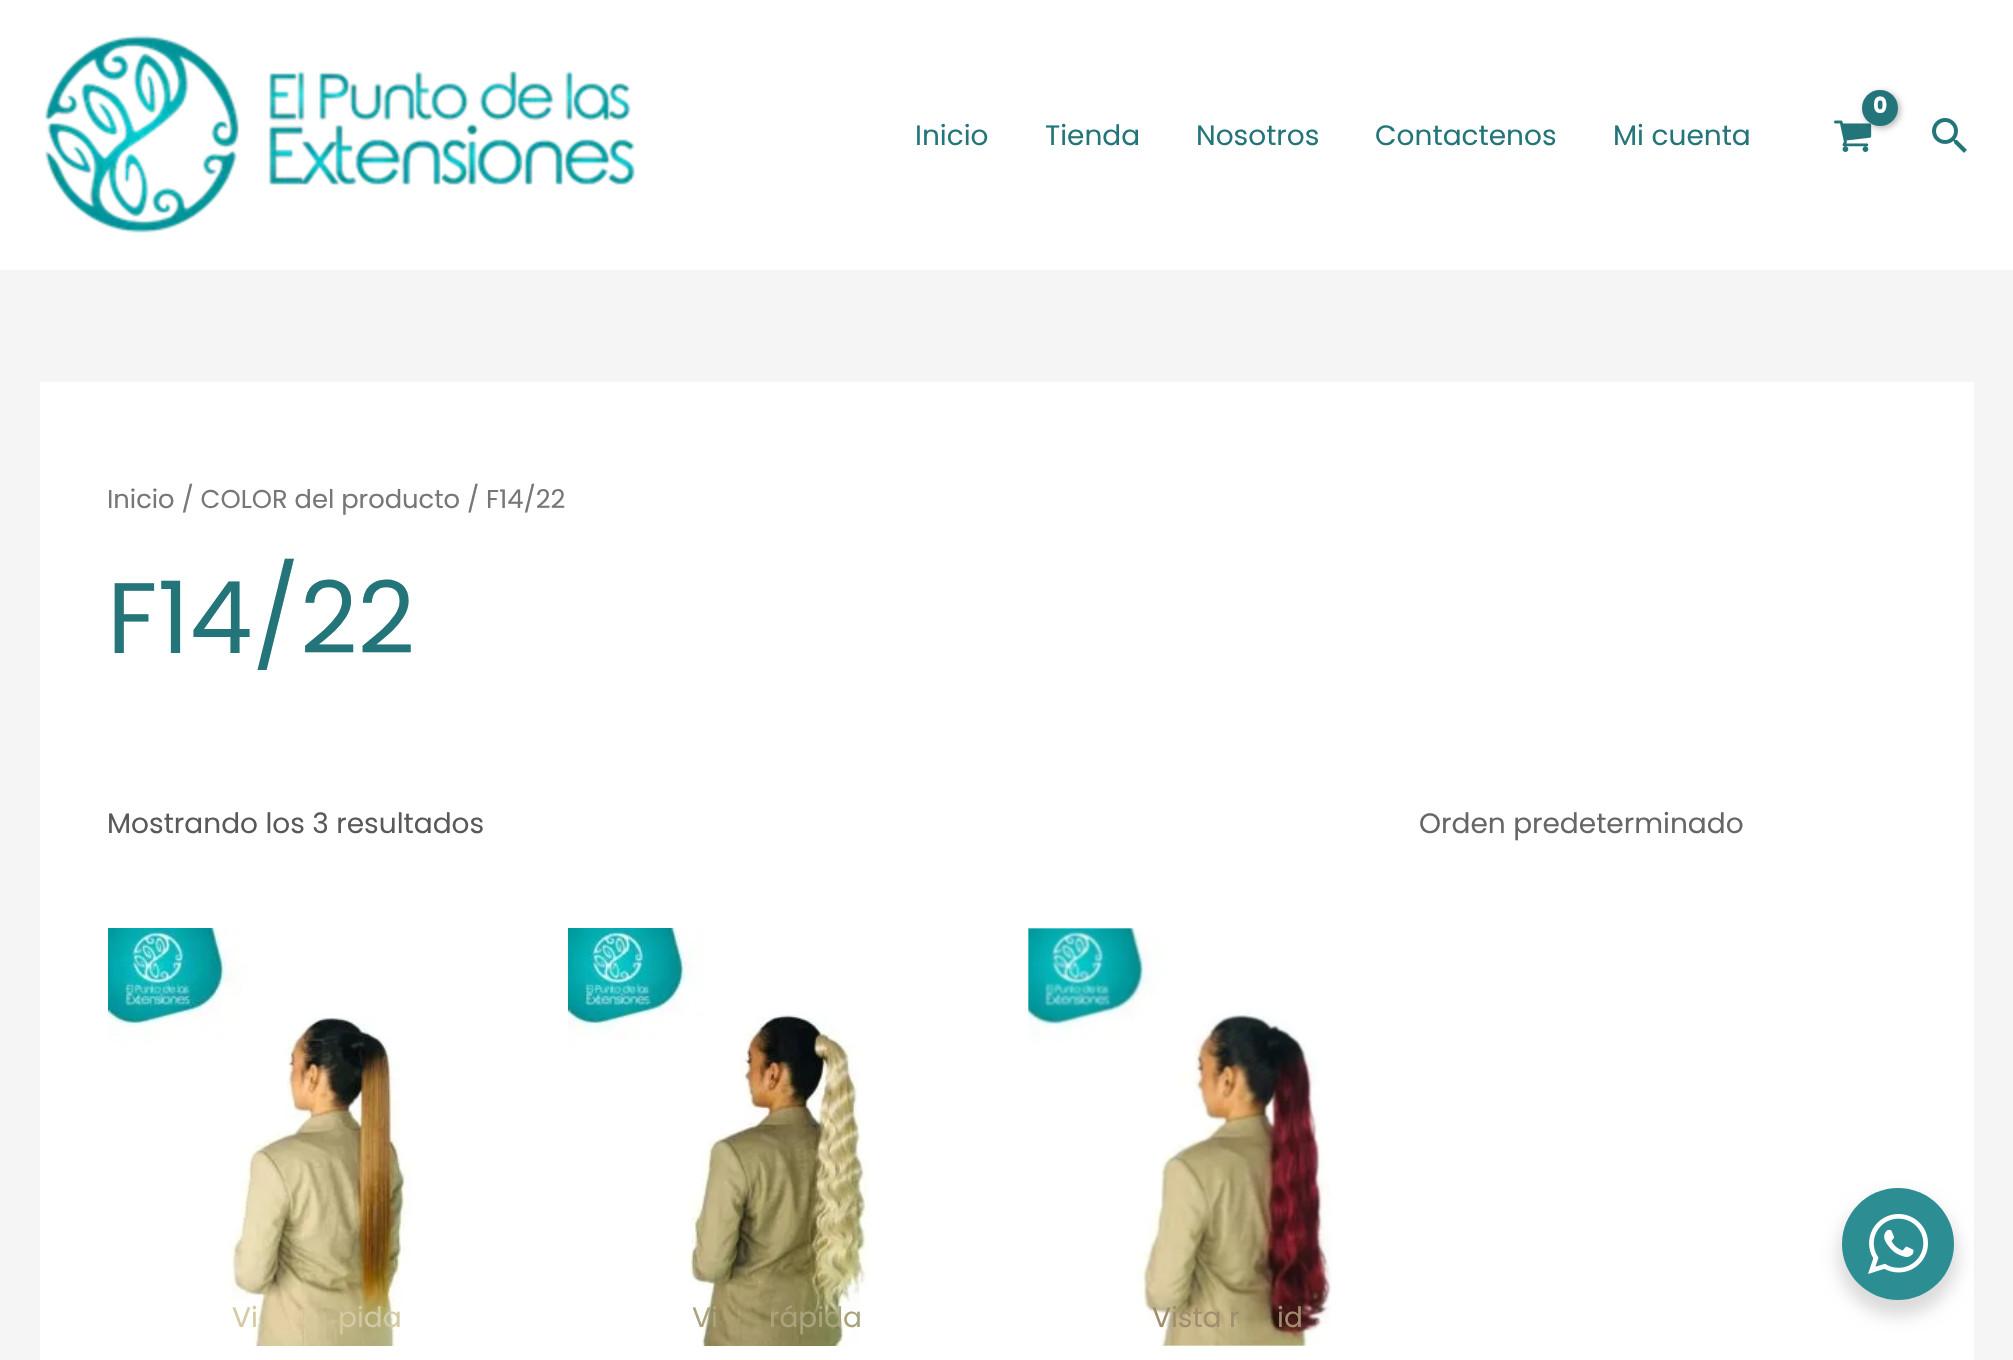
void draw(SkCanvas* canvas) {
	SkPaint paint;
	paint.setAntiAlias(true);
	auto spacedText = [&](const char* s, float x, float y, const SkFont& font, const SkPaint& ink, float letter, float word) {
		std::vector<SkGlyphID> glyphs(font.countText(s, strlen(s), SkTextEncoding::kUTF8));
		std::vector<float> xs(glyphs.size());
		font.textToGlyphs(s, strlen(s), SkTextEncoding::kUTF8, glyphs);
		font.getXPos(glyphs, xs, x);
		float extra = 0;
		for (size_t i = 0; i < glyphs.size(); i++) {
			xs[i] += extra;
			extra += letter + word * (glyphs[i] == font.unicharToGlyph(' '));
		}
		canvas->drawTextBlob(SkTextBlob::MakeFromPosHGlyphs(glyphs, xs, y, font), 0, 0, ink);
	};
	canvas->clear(0xfff5f5f5);
	paint.setColor(0xffffffff);
	canvas->drawRect(SkRect::MakeXYWH(0, 0, 2013, 270), paint);
	canvas->drawImageRect(SkImages::DeferredFromEncodedData(SkData::MakeFromFileName("img1.png")), SkRect::MakeXYWH(45, 35, 590, 198), SkSamplingOptions());
	canvas->drawImageRect(SkImages::DeferredFromEncodedData(SkData::MakeFromFileName("img2.png")), SkRect::MakeXYWH(1834, 120, 38, 32), SkSamplingOptions());
	paint.setColor(0x4d000000);
	paint.setMaskFilter(SkMaskFilter::MakeBlur(kNormal_SkBlurStyle, 3));
	canvas->drawRoundRect(SkRect::MakeXYWH(1864, 92, 36, 36), 18, 18, paint);
	paint.setMaskFilter(nullptr);
	paint.setColor(0xff24757a);
	canvas->drawCircle(1880, 108, 18, paint);
	SkFont f1(fontMgr->matchFamilyStyle("Poppins", SkFontStyle::Bold()), 22);
	f1.setSubpixel(true);
	paint.setColor(0xfffefefe);
	spacedText("0", 1873, 113, f1, paint, -1, 0);
	SkFont f2(fontMgr->matchFamilyStyle("Poppins", SkFontStyle::Normal()), 28);
	f2.setSubpixel(true);
	paint.setColor(0xff24757a);
	canvas->drawString("Inicio", 915, 145, f2, paint);
	canvas->drawString("Tienda", 1045, 145, f2, paint);
	canvas->drawString("Nosotros", 1196, 145, f2, paint);
	canvas->drawString("Contactenos", 1375, 145, f2, paint);
	canvas->drawString("Mi cuenta", 1613, 145, f2, paint);
	canvas->drawImageRect(SkImages::DeferredFromEncodedData(SkData::MakeFromFileName("img3.png")), SkRect::MakeXYWH(1932, 118, 35, 35), SkSamplingOptions());
	paint.setColor(0xffffffff);
	canvas->drawRect(SkRect::MakeXYWH(40, 382, 1934, 978), paint);
	SkFont f3(fontMgr->matchFamilyStyle("Poppins", SkFontStyle::Normal()), 25.75);
	f3.setSubpixel(true);
	paint.setColor(0xff777777);
	canvas->drawString("Inicio / COLOR del producto / F14/22", 107, 508, f3, paint);
	SkFont f4(fontMgr->matchFamilyStyle("Poppins", SkFontStyle::Normal()), 100);
	f4.setSubpixel(true);
	paint.setColor(0xff24757a);
	canvas->drawString("F14/22", 107, 653, f4, paint);
	paint.setColor(0xff595959);
	canvas->drawString("Mostrando los 3 resultados", 107, 833, f2, paint);
	paint.setColor(0xff666666);
	canvas->drawString("Orden predeterminado", 1419, 833, f2, paint);
	canvas->drawImageRect(SkImages::DeferredFromEncodedData(SkData::MakeFromFileName("img4.png")), SkRect::MakeXYWH(108, 928, 307, 418), SkSamplingOptions());
	paint.setColor(0xffd3c9a2);
	canvas->drawString("Vi", 232, 1327, f2, paint);
	canvas->drawString("pida", 338, 1327, f2, paint);
	canvas->drawImageRect(SkImages::DeferredFromEncodedData(SkData::MakeFromFileName("img5.png")), SkRect::MakeXYWH(568, 928, 301, 418), SkSamplingOptions());
	paint.setColor(0xffaaa47e);
	canvas->drawString("Vi", 692, 1327, f2, paint);
	canvas->drawString("rápida", 769, 1327, f2, paint);
	canvas->drawImageRect(SkImages::DeferredFromEncodedData(SkData::MakeFromFileName("img6.png")), SkRect::MakeXYWH(1028, 928, 304, 418), SkSamplingOptions());
	paint.setColor(0xffa18c6f);
	canvas->drawString("Vista r", 1152, 1327, f2, paint);
	canvas->drawString("id", 1277, 1327, f2, paint);
	paint.setColor(0x24000000);
	paint.setMaskFilter(SkMaskFilter::MakeBlur(kNormal_SkBlurStyle, 8));
	canvas->drawRoundRect(SkRect::MakeXYWH(1838, 1196, 120, 120), 60, 60, paint);
	paint.setMaskFilter(nullptr);
	paint.setColor(0xff2c8e92);
	canvas->drawCircle(1898, 1244, 56, paint);
	canvas->drawImageRect(SkImages::DeferredFromEncodedData(SkData::MakeFromFileName("img7.png")), SkRect::MakeXYWH(1868, 1214, 60, 60), SkSamplingOptions());
}
